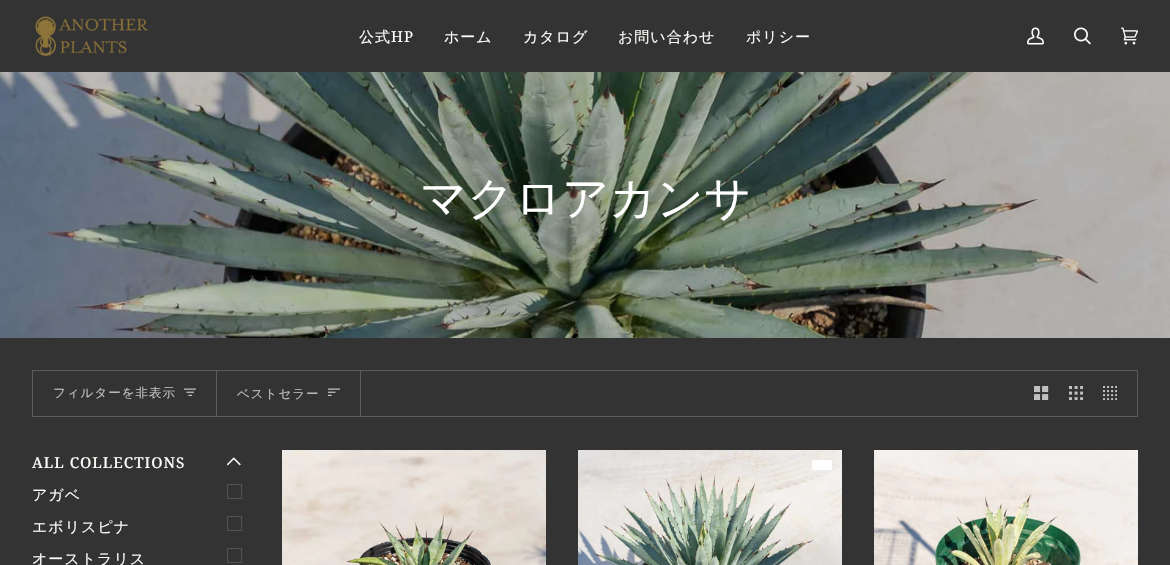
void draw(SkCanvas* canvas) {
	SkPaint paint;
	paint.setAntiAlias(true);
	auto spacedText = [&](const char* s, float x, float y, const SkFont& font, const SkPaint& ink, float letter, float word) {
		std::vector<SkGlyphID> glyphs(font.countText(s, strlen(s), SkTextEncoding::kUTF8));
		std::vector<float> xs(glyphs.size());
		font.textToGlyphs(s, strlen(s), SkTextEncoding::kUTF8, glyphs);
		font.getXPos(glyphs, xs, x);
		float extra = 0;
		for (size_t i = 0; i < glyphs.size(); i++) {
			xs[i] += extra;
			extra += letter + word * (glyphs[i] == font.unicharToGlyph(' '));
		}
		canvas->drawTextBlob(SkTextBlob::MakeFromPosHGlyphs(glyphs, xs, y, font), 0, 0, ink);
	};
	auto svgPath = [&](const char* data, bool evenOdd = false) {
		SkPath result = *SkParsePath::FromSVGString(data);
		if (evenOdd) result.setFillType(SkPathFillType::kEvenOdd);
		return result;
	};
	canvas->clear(0xff333333);
	canvas->drawImageRect(SkImages::DeferredFromEncodedData(SkData::MakeFromFileName("img1.png")), SkRect::MakeXYWH(35, 16, 113, 41), SkSamplingOptions());
	SkFont f1(fontMgr->matchFamilyStyle("WenQuanYi Zen Hei", SkFontStyle(500, SkFontStyle::kNormal_Width, SkFontStyle::kUpright_Slant)), 15);
	f1.setSubpixel(true);
	paint.setColor(0xfffffcf9);
	spacedText("公式", 359, 42, f1, paint, 1, 0);
	SkFont f2(fontMgr->matchFamilyStyle("Noto Serif", SkFontStyle::Normal()), 15);
	f2.setSubpixel(true);
	spacedText("HP", 391, 42, f2, paint, 1, 0);
	spacedText("ホーム", 444, 42, f1, paint, 1, 0);
	spacedText("カタログ", 523, 42, f1, paint, 1, 0);
	spacedText("お問い合わせ", 618, 42, f1, paint, 1, 0);
	spacedText("ポリシー", 746, 42, f1, paint, 1, 0);
	canvas->drawImageRect(SkImages::DeferredFromEncodedData(SkData::MakeFromFileName("img2.png")), SkRect::MakeXYWH(1027, 27, 17, 18), SkSamplingOptions());
	canvas->drawImageRect(SkImages::DeferredFromEncodedData(SkData::MakeFromFileName("img3.png")), SkRect::MakeXYWH(1074, 27, 17, 18), SkSamplingOptions());
	canvas->drawImageRect(SkImages::DeferredFromEncodedData(SkData::MakeFromFileName("img4.png")), SkRect::MakeXYWH(1121, 27, 17, 18), SkSamplingOptions());
	canvas->drawImageRect(SkImages::DeferredFromEncodedData(SkData::MakeFromFileName("img5.png")), SkRect::MakeXYWH(0, 72, 1170, 266), SkSamplingOptions());
	SkFont f3(fontMgr->matchFamilyStyle("WenQuanYi Zen Hei", SkFontStyle(500, SkFontStyle::kNormal_Width, SkFontStyle::kUpright_Slant)), 46.25);
	f3.setSubpixel(true);
	paint.setColor(0xffffffff);
	canvas->drawString("マクロアカンサ", 420, 214, f3, paint);
	paint.setStroke(true);
	paint.setStrokeWidth(1);
	paint.setColor(0xff5c5b5b);
	canvas->drawRect(SkRect::MakeXYWH(32.5, 370.5, 1105, 46), paint);
	paint.setStroke(false);
	canvas->drawRect(SkRect::MakeXYWH(216, 371, 1, 45), paint);
	SkFont f4(fontMgr->matchFamilyStyle("WenQuanYi Zen Hei", SkFontStyle(500, SkFontStyle::kNormal_Width, SkFontStyle::kUpright_Slant)), 12.5);
	f4.setSubpixel(true);
	paint.setColor(0xffc2c0be);
	spacedText("フィルターを非表示", 53, 397, f4, paint, 1, 0);
	canvas->drawImageRect(SkImages::DeferredFromEncodedData(SkData::MakeFromFileName("img6.png")), SkRect::MakeXYWH(184, 388, 12, 8), SkSamplingOptions());
	paint.setColor(0xff5c5b5b);
	canvas->drawRect(SkRect::MakeXYWH(360, 371, 1, 45), paint);
	paint.setColor(0xffc2c0be);
	spacedText("ベストセラー", 237, 398, f4, paint, 1, 0);
	canvas->drawImageRect(SkImages::DeferredFromEncodedData(SkData::MakeFromFileName("img7.png")), SkRect::MakeXYWH(328, 388, 12, 8), SkSamplingOptions());
	canvas->drawImageRect(SkImages::DeferredFromEncodedData(SkData::MakeFromFileName("img8.png")), SkRect::MakeXYWH(1034, 386, 15, 14), SkSamplingOptions());
	canvas->drawImageRect(SkImages::DeferredFromEncodedData(SkData::MakeFromFileName("img9.png")), SkRect::MakeXYWH(1069, 386, 14, 14), SkSamplingOptions());
	canvas->drawImageRect(SkImages::DeferredFromEncodedData(SkData::MakeFromFileName("img10.png")), SkRect::MakeXYWH(1103, 386, 14, 14), SkSamplingOptions());
	SkFont f5(fontMgr->matchFamilyStyle("Noto Serif", SkFontStyle(500, SkFontStyle::kNormal_Width, SkFontStyle::kUpright_Slant)), 15);
	f5.setSubpixel(true);
	paint.setColor(0xfffffcf9);
	spacedText("ALL COLLECTIONS", 32, 468, f5, paint, 1, 0);
	canvas->drawImageRect(SkImages::DeferredFromEncodedData(SkData::MakeFromFileName("img11.png")), SkRect::MakeXYWH(227, 457, 14, 9), SkSamplingOptions());
	spacedText("アガベ", 32, 500, f1, paint, 1, 0);
	paint.setStroke(true);
	paint.setStrokeWidth(0.8);
	paint.setColor(0xff5c5b5b);
	canvas->drawPath(svgPath("M227.5 484.5H241.5V498.5H227.5ZM227.5 516.5H241.5V530.5H227.5Z"), paint);
	paint.setStroke(false);
	paint.setColor(0xfffffcf9);
	spacedText("エボリスピナ", 32, 532, f1, paint, 1, 0);
	spacedText("オーストラリス", 32, 564, f1, paint, 1, 0);
	paint.setStroke(true);
	paint.setColor(0xff5c5b5b);
	canvas->drawPath(svgPath("M227.5 548.5H241.5V562.5H227.5Z"), paint);
	canvas->drawImageRect(SkImages::DeferredFromEncodedData(SkData::MakeFromFileName("img12.png")), SkRect::MakeXYWH(282, 450, 264, 115), SkSamplingOptions());
	canvas->drawImageRect(SkImages::DeferredFromEncodedData(SkData::MakeFromFileName("img13.png")), SkRect::MakeXYWH(578, 450, 264, 115), SkSamplingOptions());
	paint.setStroke(false);
	paint.setColor(0xffffffff);
	canvas->drawRect(SkRect::MakeXYWH(812, 460, 20, 10), paint);
	canvas->drawImageRect(SkImages::DeferredFromEncodedData(SkData::MakeFromFileName("img14.png")), SkRect::MakeXYWH(874, 450, 264, 115), SkSamplingOptions());
}
